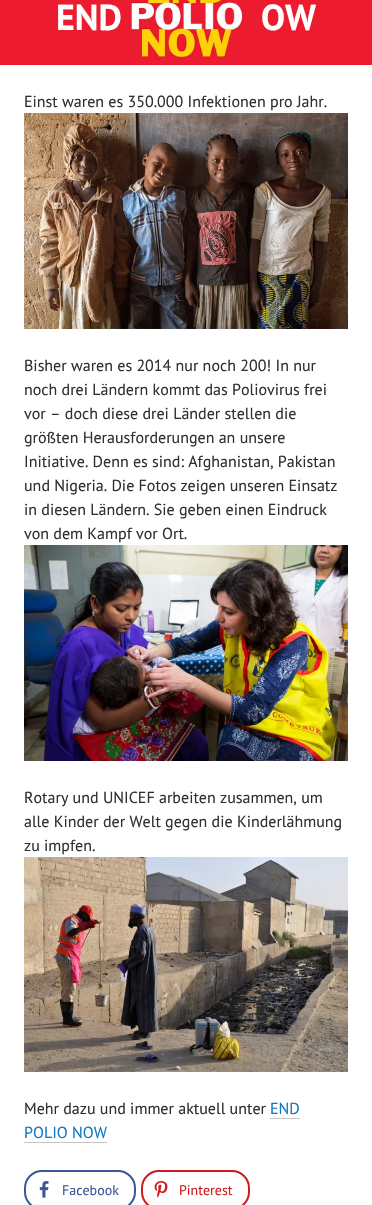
void draw(SkCanvas* canvas) {
	SkPaint paint;
	paint.setAntiAlias(true);
	canvas->clear(0xffffffff);
	canvas->drawImageRect(SkImages::DeferredFromEncodedData(SkData::MakeFromFileName("img1.png")), SkRect::MakeXYWH(0, 0, 372, 65), SkSamplingOptions());
	SkFont f1(fontMgr->matchFamilyStyle("PT Sans", SkFontStyle::Bold()), 36);
	f1.setSubpixel(true);
	paint.setColor(0xffffffff);
	canvas->drawString("END", 56, 30, f1, paint);
	canvas->drawString("OW", 261, 30, f1, paint);
	SkFont f2(fontMgr->matchFamilyStyle("PT Sans", SkFontStyle::Normal()), 16);
	f2.setSubpixel(true);
	paint.setColor(0xff303030);
	canvas->drawString("Einst waren es 350.000 Infektionen pro Jahr.", 24, 107, f2, paint);
	canvas->drawImageRect(SkImages::DeferredFromEncodedData(SkData::MakeFromFileName("img2.png")), SkRect::MakeXYWH(24, 113, 324, 216), SkSamplingOptions());
	canvas->drawString("Bisher waren es 2014 nur noch 200! In nur", 24, 371, f2, paint);
	canvas->drawString("noch drei Ländern kommt das Poliovirus frei", 24, 395, f2, paint);
	canvas->drawString("vor – doch diese drei Länder stellen die", 24, 419, f2, paint);
	canvas->drawString("größten Herausforderungen an unsere", 24, 443, f2, paint);
	canvas->drawString("Initiative. Denn es sind: Afghanistan, Pakistan", 24, 467, f2, paint);
	canvas->drawString("und Nigeria. Die Fotos zeigen unseren Einsatz", 24, 491, f2, paint);
	canvas->drawString("in diesen Ländern. Sie geben einen Eindruck", 24, 515, f2, paint);
	canvas->drawString("von dem Kampf vor Ort.", 24, 539, f2, paint);
	canvas->drawImageRect(SkImages::DeferredFromEncodedData(SkData::MakeFromFileName("img3.png")), SkRect::MakeXYWH(24, 545, 324, 216), SkSamplingOptions());
	canvas->drawString("Rotary und UNICEF arbeiten zusammen, um", 24, 803, f2, paint);
	canvas->drawString("alle Kinder der Welt gegen die Kinderlähmung", 24, 827, f2, paint);
	canvas->drawString("zu impfen.", 24, 851, f2, paint);
	canvas->drawImageRect(SkImages::DeferredFromEncodedData(SkData::MakeFromFileName("img4.png")), SkRect::MakeXYWH(24, 857, 324, 215), SkSamplingOptions());
	canvas->drawString("Mehr dazu und immer aktuell unter", 24, 1114, f2, paint);
	paint.setColor(0xff1279be);
	canvas->drawString("END", 270, 1114, f2, paint);
	paint.setColor(0xffc5c5c5);
	canvas->drawRect(SkRect::MakeXYWH(270, 1118, 30, 1), paint);
	paint.setColor(0xff1279be);
	canvas->drawString("POLIO NOW", 24, 1138, f2, paint);
	paint.setColor(0xffc5c5c5);
	canvas->drawRect(SkRect::MakeXYWH(24, 1142, 83, 1), paint);
	paint.setStroke(true);
	paint.setStrokeWidth(2);
	paint.setColor(0xff3a579a);
	canvas->drawRoundRect(SkRect::MakeXYWH(25, 1171, 110, 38), 17, 17, paint);
	canvas->drawImageRect(SkImages::DeferredFromEncodedData(SkData::MakeFromFileName("img5.png")), SkRect::MakeXYWH(39, 1181, 10, 17), SkSamplingOptions());
	SkFont f3(fontMgr->matchFamilyStyle("PT Sans", SkFontStyle::Normal()), 14);
	f3.setSubpixel(true);
	paint.setStroke(false);
	canvas->drawString("Facebook", 62, 1195, f3, paint);
	paint.setStroke(true);
	paint.setColor(0xffcd1c1f);
	canvas->drawRoundRect(SkRect::MakeXYWH(142, 1171, 107, 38), 17, 17, paint);
	canvas->drawImageRect(SkImages::DeferredFromEncodedData(SkData::MakeFromFileName("img6.png")), SkRect::MakeXYWH(154, 1181, 14, 17), SkSamplingOptions());
	paint.setStroke(false);
	canvas->drawString("Pinterest", 179, 1195, f3, paint);
}
